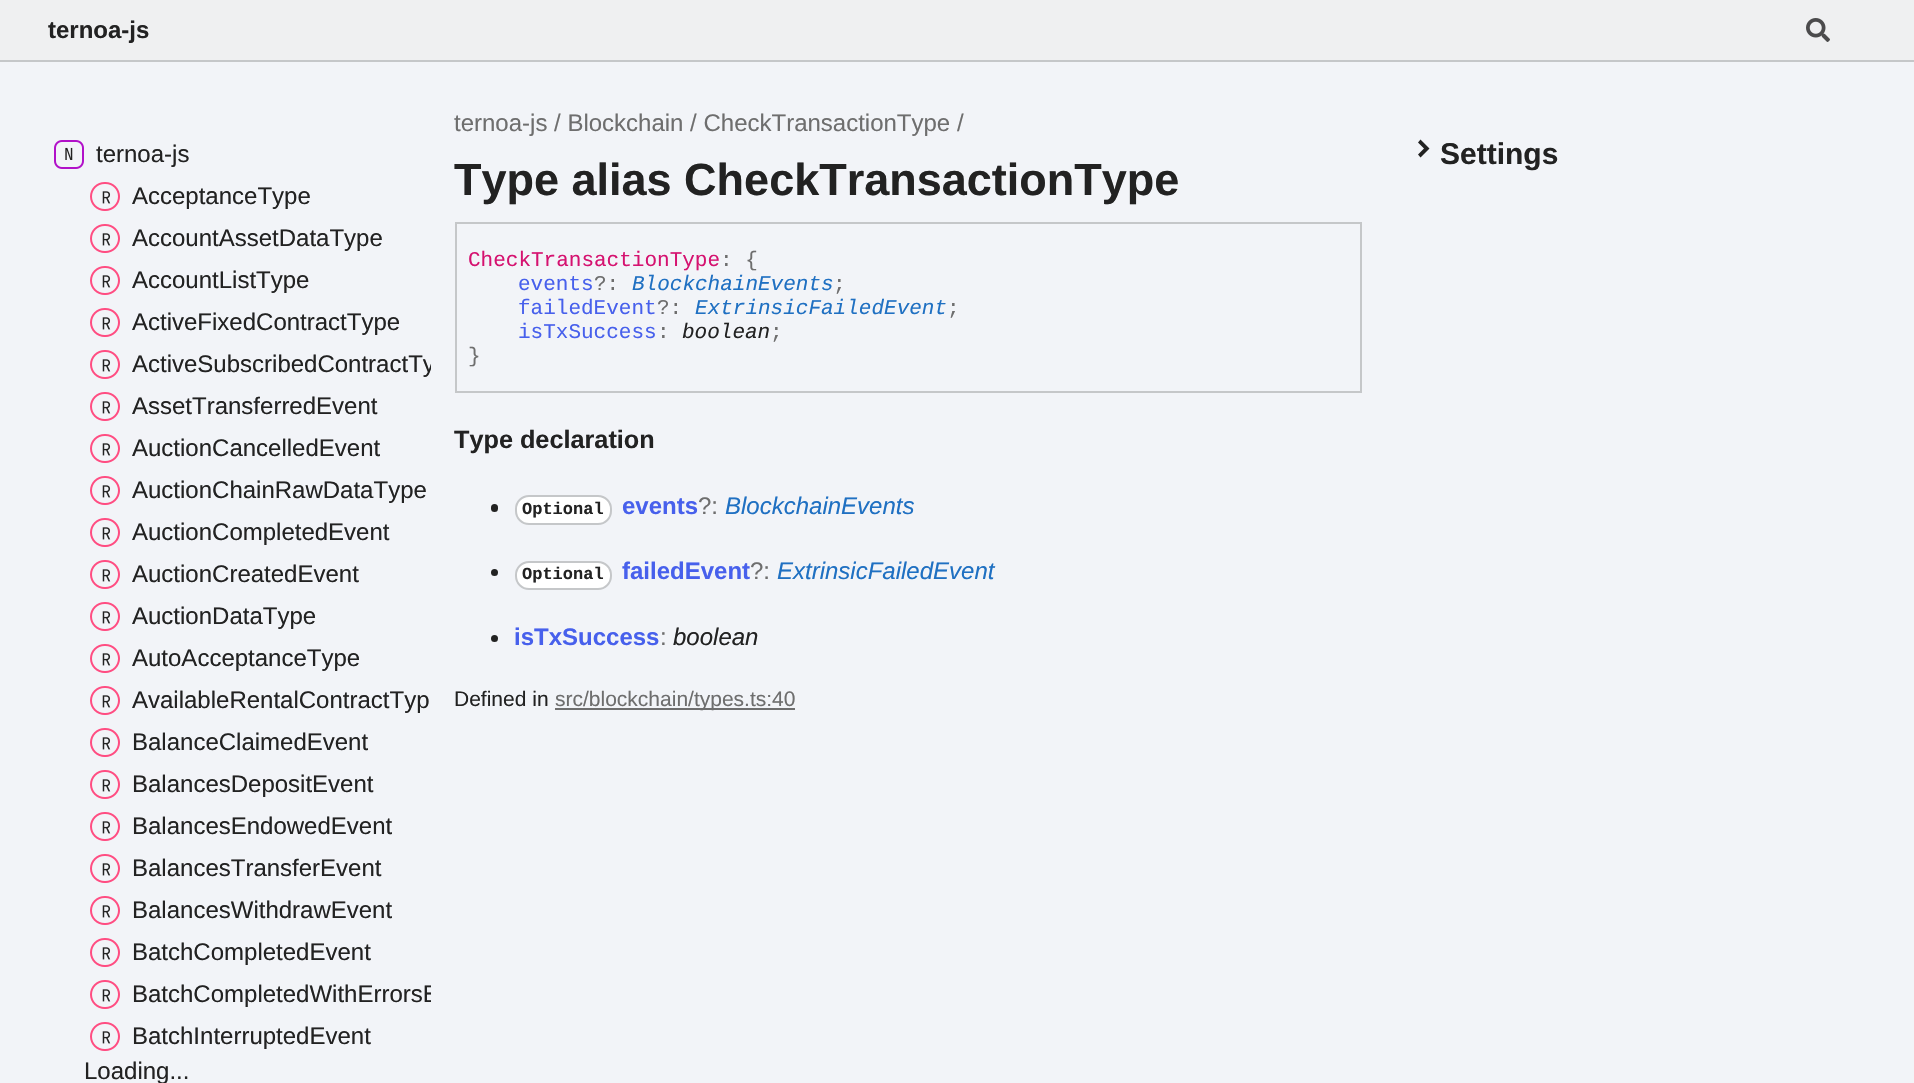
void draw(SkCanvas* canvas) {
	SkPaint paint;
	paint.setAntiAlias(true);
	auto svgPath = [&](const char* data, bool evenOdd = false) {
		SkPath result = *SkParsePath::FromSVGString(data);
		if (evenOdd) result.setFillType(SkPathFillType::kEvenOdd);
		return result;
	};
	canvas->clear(0xfff2f4f8);
	paint.setColor(0xffeff0f1);
	canvas->drawRect(SkRect::MakeXYWH(0, 0, 1914, 60), paint);
	paint.setColor(0xffc5c7c9);
	canvas->drawRect(SkRect::MakeXYWH(0, 60, 1914, 2), paint);
	SkFont f1(fontMgr->matchFamilyStyle("Liberation Sans", SkFontStyle::Bold()), 24);
	f1.setSubpixel(true);
	paint.setColor(0xff222222);
	canvas->drawString("ternoa-js", 48, 38, f1, paint);
	canvas->drawImageRect(SkImages::DeferredFromEncodedData(SkData::MakeFromFileName("img1.png")), SkRect::MakeXYWH(1806, 18, 24, 24), SkSamplingOptions());
	SkFont f2(fontMgr->matchFamilyStyle("Liberation Sans", SkFontStyle::Normal()), 24);
	f2.setSubpixel(true);
	paint.setColor(0xff6e6e6e);
	canvas->drawString("ternoa-js / Blockchain / CheckTransactionType /", 454, 131, f2, paint);
	SkFont f3(fontMgr->matchFamilyStyle("Liberation Sans", SkFontStyle::Bold()), 45);
	f3.setSubpixel(true);
	paint.setColor(0xff222222);
	canvas->drawString("Type alias CheckTransactionType", 454, 195, f3, paint);
	paint.setStroke(true);
	paint.setStrokeWidth(2);
	paint.setColor(0xffc5c7c9);
	canvas->drawRect(SkRect::MakeXYWH(456, 223, 905, 169), paint);
	SkFont f4(fontMgr->matchFamilyStyle("Liberation Mono", SkFontStyle::Normal()), 21);
	f4.setSubpixel(true);
	paint.setStroke(false);
	paint.setColor(0xffd51270);
	canvas->drawString("CheckTransactionType", 468, 266, f4, paint);
	paint.setColor(0xff6e6e6e);
	canvas->drawString(": {", 720, 266, f4, paint);
	paint.setColor(0xff4760ec);
	canvas->drawString("events", 518, 290, f4, paint);
	paint.setColor(0xff6e6e6e);
	canvas->drawString("?:", 594, 290, f4, paint);
	SkFont f5(fontMgr->matchFamilyStyle("Liberation Mono", SkFontStyle::Italic()), 21);
	f5.setSubpixel(true);
	paint.setColor(0xff1f70c2);
	canvas->drawString("BlockchainEvents", 632, 290, f5, paint);
	paint.setColor(0xff6e6e6e);
	canvas->drawString(";", 833, 290, f4, paint);
	paint.setColor(0xff4760ec);
	canvas->drawString("failedEvent", 518, 314, f4, paint);
	paint.setColor(0xff6e6e6e);
	canvas->drawString("?:", 657, 314, f4, paint);
	paint.setColor(0xff1f70c2);
	canvas->drawString("ExtrinsicFailedEvent", 695, 314, f5, paint);
	paint.setColor(0xff6e6e6e);
	canvas->drawString(";", 947, 314, f4, paint);
	paint.setColor(0xff4760ec);
	canvas->drawString("isTxSuccess", 518, 338, f4, paint);
	paint.setColor(0xff6e6e6e);
	canvas->drawString(":", 657, 338, f4, paint);
	paint.setColor(0xff222222);
	canvas->drawString("boolean", 682, 338, f5, paint);
	paint.setColor(0xff6e6e6e);
	canvas->drawString(";", 770, 338, f4, paint);
	canvas->drawString("}", 468, 362, f4, paint);
	SkFont f6(fontMgr->matchFamilyStyle("Liberation Sans", SkFontStyle::Bold()), 25.25);
	f6.setSubpixel(true);
	paint.setColor(0xff222222);
	canvas->drawString("Type declaration", 454, 448, f6, paint);
	canvas->drawRoundRect(SkRect::MakeXYWH(491, 504, 7, 8), 3.5, 3.5, paint);
	paint.setColor(0xffffffff);
	canvas->drawRoundRect(SkRect::MakeXYWH(516, 496, 95, 28), 13, 13, paint);
	paint.setStroke(true);
	paint.setColor(0xffc5c7c9);
	canvas->drawRoundRect(SkRect::MakeXYWH(516, 496, 95, 28), 13, 13, paint);
	SkFont f7(fontMgr->matchFamilyStyle("Liberation Mono", SkFontStyle::Bold()), 17);
	f7.setSubpixel(true);
	paint.setStroke(false);
	paint.setColor(0xff222222);
	canvas->drawString("Optional", 522, 514, f7, paint);
	paint.setColor(0xff4760ec);
	canvas->drawString("events", 622, 514, f1, paint);
	paint.setColor(0xff6e6e6e);
	canvas->drawString("?:", 698, 514, f2, paint);
	SkFont f8(fontMgr->matchFamilyStyle("Liberation Sans", SkFontStyle::Italic()), 24);
	f8.setSubpixel(true);
	paint.setColor(0xff1f70c2);
	canvas->drawString("BlockchainEvents", 725, 514, f8, paint);
	paint.setColor(0xff222222);
	canvas->drawCircle(494.5, 572.5, 3.5, paint);
	paint.setColor(0xffffffff);
	canvas->drawRoundRect(SkRect::MakeXYWH(516, 562, 95, 27), 13, 13, paint);
	paint.setStroke(true);
	paint.setColor(0xffc5c7c9);
	canvas->drawRoundRect(SkRect::MakeXYWH(516, 562, 95, 27), 13, 13, paint);
	paint.setStroke(false);
	paint.setColor(0xff222222);
	canvas->drawString("Optional", 522, 579, f7, paint);
	paint.setColor(0xff4760ec);
	canvas->drawString("failedEvent", 622, 579, f1, paint);
	paint.setColor(0xff6e6e6e);
	canvas->drawString("?:", 750, 579, f2, paint);
	paint.setColor(0xff1f70c2);
	canvas->drawString("ExtrinsicFailedEvent", 777, 579, f8, paint);
	paint.setColor(0xff222222);
	canvas->drawCircle(494.5, 638.5, 3.5, paint);
	paint.setColor(0xff4760ec);
	canvas->drawString("isTxSuccess", 514, 645, f1, paint);
	paint.setColor(0xff6e6e6e);
	canvas->drawString(":", 660, 645, f2, paint);
	paint.setColor(0xff222222);
	canvas->drawString("boolean", 673, 645, f8, paint);
	SkFont f9(fontMgr->matchFamilyStyle("Liberation Sans", SkFontStyle::Normal()), 21);
	f9.setSubpixel(true);
	canvas->drawString("Defined in", 454, 706, f9, paint);
	paint.setColor(0xff6e6e6e);
	canvas->drawRect(SkRect::MakeXYWH(555, 708, 240, 2), paint);
	canvas->drawString("src/blockchain/types.ts:40", 555, 706, f9, paint);
	canvas->drawImageRect(SkImages::DeferredFromEncodedData(SkData::MakeFromFileName("img2.png")), SkRect::MakeXYWH(54, 140, 30, 29), SkSamplingOptions());
	paint.setColor(0xff222222);
	canvas->drawString("ternoa-js", 96, 162, f2, paint);
	canvas->drawImageRect(SkImages::DeferredFromEncodedData(SkData::MakeFromFileName("img3.png")), SkRect::MakeXYWH(90, 182, 30, 29), SkSamplingOptions());
	canvas->drawString("AcceptanceType", 132, 204, f2, paint);
	canvas->drawImageRect(SkImages::DeferredFromEncodedData(SkData::MakeFromFileName("img3.png")), SkRect::MakeXYWH(90, 224, 30, 29), SkSamplingOptions());
	canvas->drawString("AccountAssetDataType", 132, 246, f2, paint);
	canvas->drawImageRect(SkImages::DeferredFromEncodedData(SkData::MakeFromFileName("img3.png")), SkRect::MakeXYWH(90, 266, 30, 29), SkSamplingOptions());
	canvas->drawString("AccountListType", 132, 288, f2, paint);
	canvas->drawImageRect(SkImages::DeferredFromEncodedData(SkData::MakeFromFileName("img3.png")), SkRect::MakeXYWH(90, 308, 30, 29), SkSamplingOptions());
	canvas->drawString("ActiveFixedContractType", 132, 330, f2, paint);
	canvas->drawImageRect(SkImages::DeferredFromEncodedData(SkData::MakeFromFileName("img3.png")), SkRect::MakeXYWH(90, 350, 30, 29), SkSamplingOptions());
	canvas->save();
	canvas->clipRect(SkRect::MakeXYWH(48, 134, 383, 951));
	canvas->drawString("ActiveSubscribedContractTy", 132, 372, f2, paint);
	canvas->restore();
	canvas->drawImageRect(SkImages::DeferredFromEncodedData(SkData::MakeFromFileName("img3.png")), SkRect::MakeXYWH(90, 392, 30, 29), SkSamplingOptions());
	canvas->drawString("AssetTransferredEvent", 132, 414, f2, paint);
	canvas->drawImageRect(SkImages::DeferredFromEncodedData(SkData::MakeFromFileName("img3.png")), SkRect::MakeXYWH(90, 434, 30, 29), SkSamplingOptions());
	canvas->drawString("AuctionCancelledEvent", 132, 456, f2, paint);
	canvas->drawImageRect(SkImages::DeferredFromEncodedData(SkData::MakeFromFileName("img3.png")), SkRect::MakeXYWH(90, 476, 30, 29), SkSamplingOptions());
	canvas->drawString("AuctionChainRawDataType", 132, 498, f2, paint);
	canvas->drawImageRect(SkImages::DeferredFromEncodedData(SkData::MakeFromFileName("img3.png")), SkRect::MakeXYWH(90, 518, 30, 29), SkSamplingOptions());
	canvas->drawString("AuctionCompletedEvent", 132, 540, f2, paint);
	canvas->drawImageRect(SkImages::DeferredFromEncodedData(SkData::MakeFromFileName("img3.png")), SkRect::MakeXYWH(90, 560, 30, 29), SkSamplingOptions());
	canvas->drawString("AuctionCreatedEvent", 132, 582, f2, paint);
	canvas->drawImageRect(SkImages::DeferredFromEncodedData(SkData::MakeFromFileName("img3.png")), SkRect::MakeXYWH(90, 602, 30, 29), SkSamplingOptions());
	canvas->drawString("AuctionDataType", 132, 624, f2, paint);
	canvas->drawImageRect(SkImages::DeferredFromEncodedData(SkData::MakeFromFileName("img3.png")), SkRect::MakeXYWH(90, 644, 30, 29), SkSamplingOptions());
	canvas->drawString("AutoAcceptanceType", 132, 666, f2, paint);
	canvas->drawImageRect(SkImages::DeferredFromEncodedData(SkData::MakeFromFileName("img3.png")), SkRect::MakeXYWH(90, 686, 30, 29), SkSamplingOptions());
	canvas->drawString("AvailableRentalContractTyp", 132, 708, f2, paint);
	canvas->drawImageRect(SkImages::DeferredFromEncodedData(SkData::MakeFromFileName("img3.png")), SkRect::MakeXYWH(90, 728, 30, 29), SkSamplingOptions());
	canvas->drawString("BalanceClaimedEvent", 132, 750, f2, paint);
	canvas->drawImageRect(SkImages::DeferredFromEncodedData(SkData::MakeFromFileName("img3.png")), SkRect::MakeXYWH(90, 770, 30, 29), SkSamplingOptions());
	canvas->drawString("BalancesDepositEvent", 132, 792, f2, paint);
	canvas->drawImageRect(SkImages::DeferredFromEncodedData(SkData::MakeFromFileName("img3.png")), SkRect::MakeXYWH(90, 812, 30, 29), SkSamplingOptions());
	canvas->drawString("BalancesEndowedEvent", 132, 834, f2, paint);
	canvas->drawImageRect(SkImages::DeferredFromEncodedData(SkData::MakeFromFileName("img3.png")), SkRect::MakeXYWH(90, 854, 30, 29), SkSamplingOptions());
	canvas->drawString("BalancesTransferEvent", 132, 876, f2, paint);
	canvas->drawImageRect(SkImages::DeferredFromEncodedData(SkData::MakeFromFileName("img3.png")), SkRect::MakeXYWH(90, 896, 30, 29), SkSamplingOptions());
	canvas->drawString("BalancesWithdrawEvent", 132, 918, f2, paint);
	canvas->drawImageRect(SkImages::DeferredFromEncodedData(SkData::MakeFromFileName("img3.png")), SkRect::MakeXYWH(90, 938, 30, 29), SkSamplingOptions());
	canvas->drawString("BatchCompletedEvent", 132, 960, f2, paint);
	canvas->drawImageRect(SkImages::DeferredFromEncodedData(SkData::MakeFromFileName("img3.png")), SkRect::MakeXYWH(90, 980, 30, 29), SkSamplingOptions());
	canvas->save();
	canvas->clipRect(SkRect::MakeXYWH(48, 134, 383, 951));
	canvas->drawString("BatchCompletedWithErrorsE", 132, 1002, f2, paint);
	canvas->restore();
	canvas->drawImageRect(SkImages::DeferredFromEncodedData(SkData::MakeFromFileName("img3.png")), SkRect::MakeXYWH(90, 1022, 30, 29), SkSamplingOptions());
	canvas->drawString("BatchInterruptedEvent", 132, 1044, f2, paint);
	canvas->drawString("Loading...", 84, 1079, f2, paint);
	canvas->drawPath(svgPath("M1420.5 157.5L1429.5 148.5L1420.5 139.5L1418 142.5L1424 148.5L1418 154.5Z"), paint);
	SkFont f10(fontMgr->matchFamilyStyle("Liberation Sans", SkFontStyle::Bold()), 30);
	f10.setSubpixel(true);
	canvas->drawString("Settings", 1440, 164, f10, paint);
}
